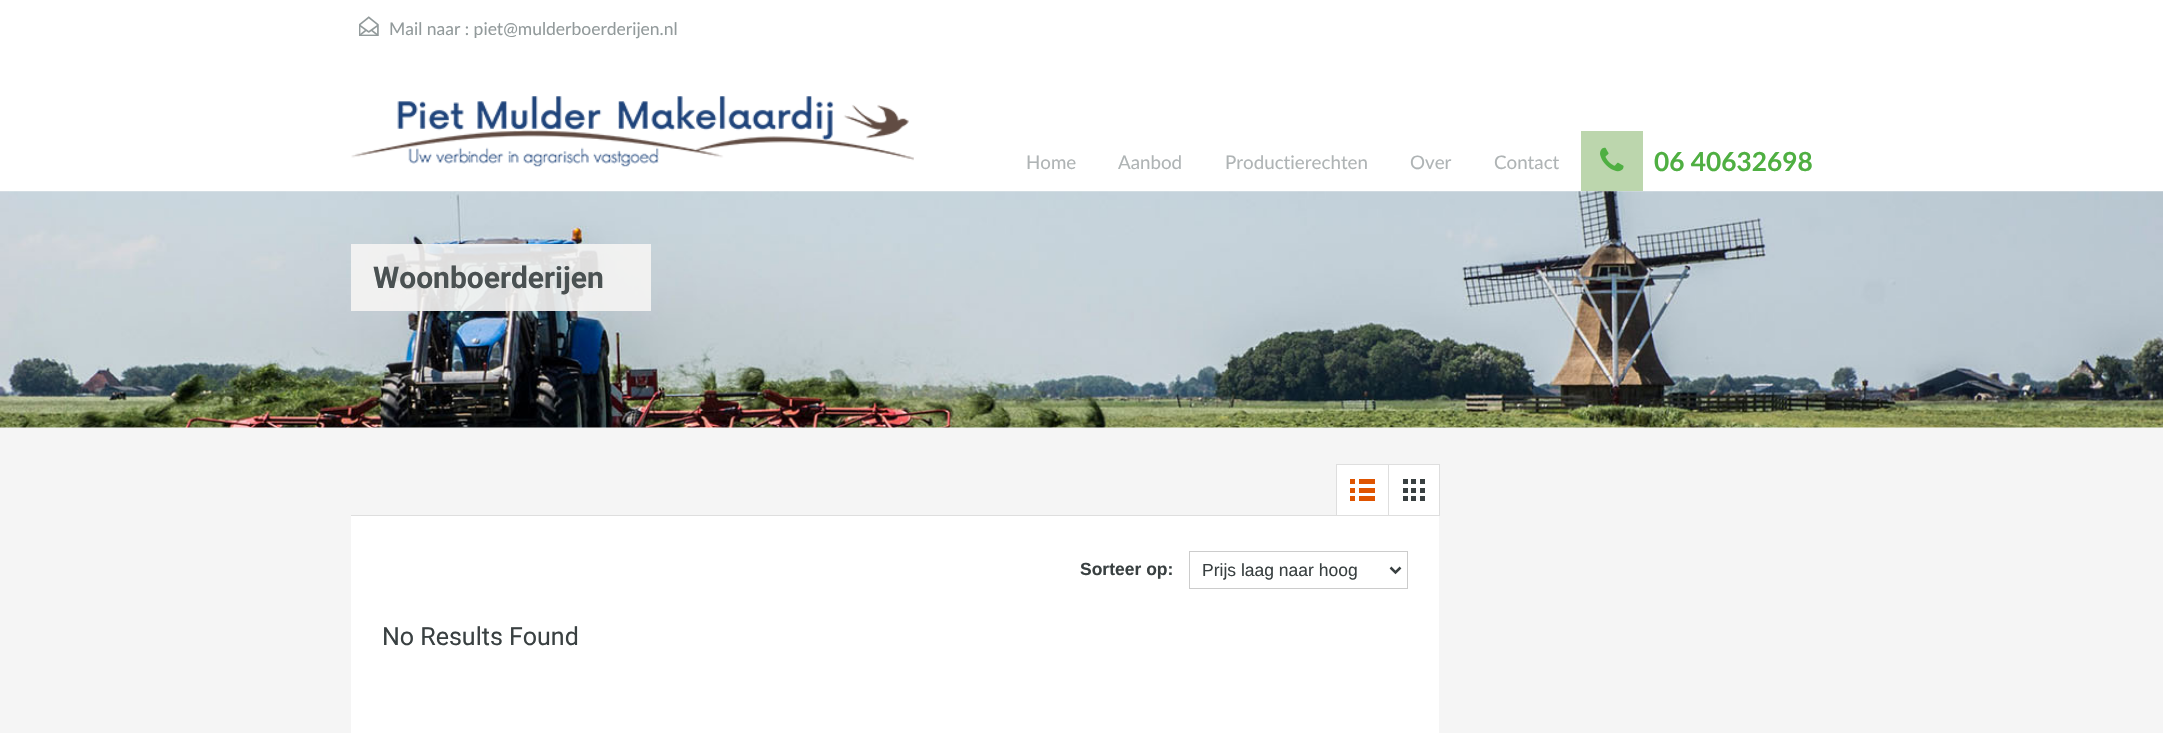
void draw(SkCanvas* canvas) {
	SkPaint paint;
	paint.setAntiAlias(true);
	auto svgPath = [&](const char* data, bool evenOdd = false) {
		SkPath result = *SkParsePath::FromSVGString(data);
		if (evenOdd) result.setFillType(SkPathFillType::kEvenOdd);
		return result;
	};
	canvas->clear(0xfff5f5f5);
	paint.setColor(0xffffffff);
	canvas->drawRect(SkRect::MakeXYWH(0, 0, 2163, 191), paint);
	canvas->drawImageRect(SkImages::DeferredFromEncodedData(SkData::MakeFromFileName("img1.png")), SkRect::MakeXYWH(359, 16, 20, 20), SkSamplingOptions());
	SkFont f1(fontMgr->matchFamilyStyle("Lato", SkFontStyle::Normal()), 17.5);
	f1.setSubpixel(true);
	paint.setColor(0xff929a9b);
	canvas->drawString("Mail naar : piet@mulderboerderijen.nl", 389, 35, f1, paint);
	canvas->drawImageRect(SkImages::DeferredFromEncodedData(SkData::MakeFromFileName("img2.png")), SkRect::MakeXYWH(351, 96, 563, 71), SkSamplingOptions());
	SkFont f2(fontMgr->matchFamilyStyle("Lato", SkFontStyle::Normal()), 18.75);
	f2.setSubpixel(true);
	paint.setColor(0xffafb4b5);
	canvas->drawString("Home", 1026, 169, f2, paint);
	canvas->drawString("Aanbod", 1118, 169, f2, paint);
	canvas->drawString("Productierechten", 1225, 169, f2, paint);
	canvas->drawString("Over", 1410, 169, f2, paint);
	canvas->drawString("Contact", 1494, 169, f2, paint);
	paint.setColor(0xffbcd6ad);
	canvas->drawRect(SkRect::MakeXYWH(1581, 131, 62, 60), paint);
	canvas->drawImageRect(SkImages::DeferredFromEncodedData(SkData::MakeFromFileName("img3.png")), SkRect::MakeXYWH(1600, 147, 24, 25), SkSamplingOptions());
	SkFont f3(fontMgr->matchFamilyStyle("Lato", SkFontStyle::Bold()), 26.25);
	f3.setSubpixel(true);
	paint.setColor(0xff4faf42);
	canvas->drawString("06 40632698", 1654, 171, f3, paint);
	canvas->drawImageRect(SkImages::DeferredFromEncodedData(SkData::MakeFromFileName("img4.png")), SkRect::MakeXYWH(0, 191, 2163, 237), SkSamplingOptions());
	paint.setColor(0xe6f5f4f3);
	canvas->drawRect(SkRect::MakeXYWH(351, 244, 300, 67), paint);
	SkFont f4(fontMgr->matchFamilyStyle("Roboto", SkFontStyle::Bold()), 30);
	f4.setSubpixel(true);
	paint.setColor(0xff4a5152);
	canvas->drawString("Woonboerderijen", 373, 288, f4, paint);
	paint.setColor(0xffffffff);
	canvas->drawRect(SkRect::MakeXYWH(351, 516, 1088, 217), paint);
	paint.setColor(0xffdedede);
	canvas->drawRect(SkRect::MakeXYWH(351, 515, 985, 1), paint);
	paint.setColor(0xffffffff);
	canvas->drawRect(SkRect::MakeXYWH(1336.5, 464.5, 103, 51), paint);
	paint.setStroke(true);
	paint.setStrokeWidth(1);
	paint.setColor(0xffdedede);
	canvas->drawRect(SkRect::MakeXYWH(1336.5, 464.5, 103, 51), paint);
	paint.setStroke(false);
	canvas->drawRect(SkRect::MakeXYWH(1388, 465, 1, 50), paint);
	canvas->drawImageRect(SkImages::DeferredFromEncodedData(SkData::MakeFromFileName("img5.png")), SkRect::MakeXYWH(1350, 479, 25, 22), SkSamplingOptions());
	canvas->drawImageRect(SkImages::DeferredFromEncodedData(SkData::MakeFromFileName("img6.png")), SkRect::MakeXYWH(1403, 479, 22, 22), SkSamplingOptions());
	SkFont f5(fontMgr->matchFamilyStyle("Liberation Sans", SkFontStyle::Bold()), 17.5);
	f5.setSubpixel(true);
	paint.setColor(0xff394041);
	canvas->drawString("Sorteer op:", 1080, 575, f5, paint);
	paint.setStroke(true);
	paint.setColor(0xffcccccc);
	canvas->drawRect(SkRect::MakeXYWH(1189.5, 551.5, 218, 37), paint);
	paint.setStrokeWidth(2.5);
	paint.setColor(0xff394041);
	canvas->drawPath(svgPath("M1390.5 567.5L1395.5 572.5L1400.5 567.5"), paint);
	SkFont f6(fontMgr->matchFamilyStyle("Liberation Sans", SkFontStyle::Normal()), 17.5);
	f6.setSubpixel(true);
	paint.setStroke(false);
	canvas->drawString("Prijs laag naar hoog", 1202, 576, f6, paint);
	SkFont f7(fontMgr->matchFamilyStyle("Roboto", SkFontStyle::Normal()), 25);
	f7.setSubpixel(true);
	canvas->drawString("No Results Found", 382, 645, f7, paint);
}
